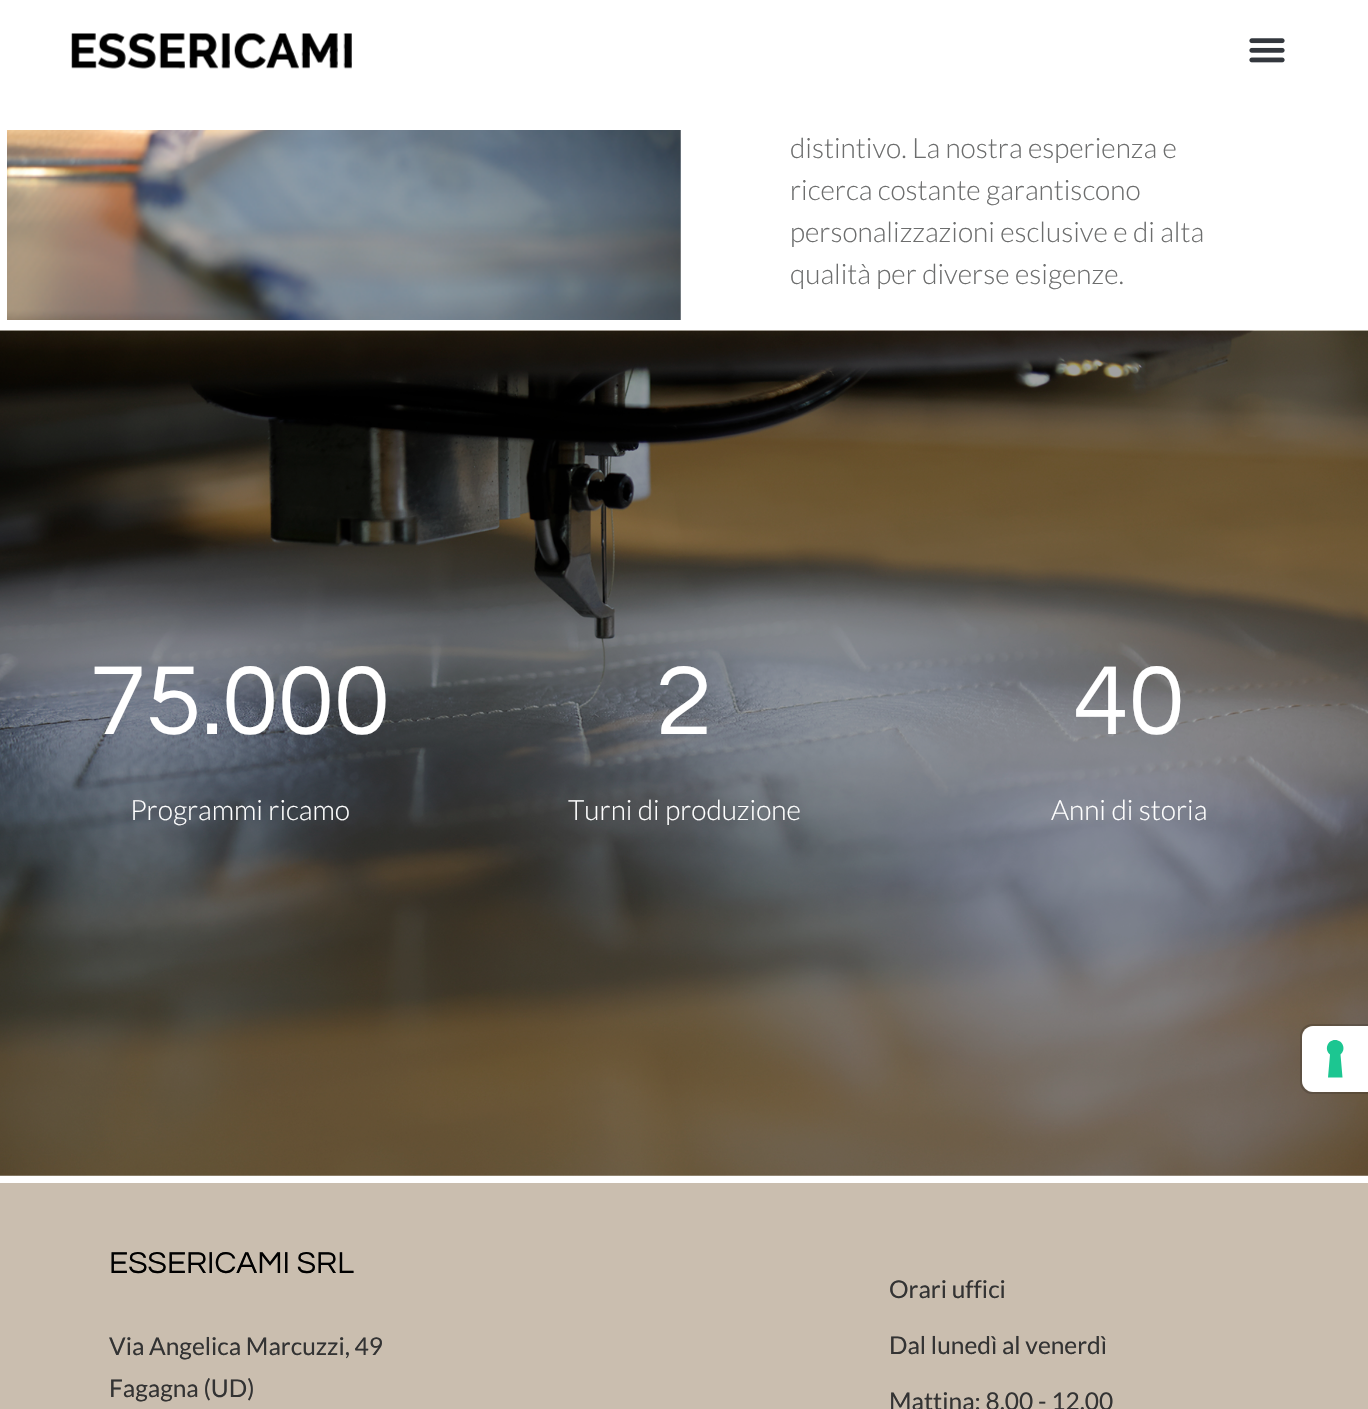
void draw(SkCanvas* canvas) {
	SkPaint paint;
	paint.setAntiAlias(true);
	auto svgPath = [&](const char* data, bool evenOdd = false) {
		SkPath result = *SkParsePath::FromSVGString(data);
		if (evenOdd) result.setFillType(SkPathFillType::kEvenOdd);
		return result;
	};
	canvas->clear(0xffffffff);
	canvas->drawImageRect(SkImages::DeferredFromEncodedData(SkData::MakeFromFileName("img1.png")), SkRect::MakeXYWH(71, 33, 281, 36), SkSamplingOptions());
	canvas->drawImageRect(SkImages::DeferredFromEncodedData(SkData::MakeFromFileName("img2.png")), SkRect::MakeXYWH(1249, 38, 36, 25), SkSamplingOptions());
	canvas->drawImageRect(SkImages::DeferredFromEncodedData(SkData::MakeFromFileName("img3.png")), SkRect::MakeXYWH(7, 130, 674, 190), SkSamplingOptions());
	SkFont f1(fontMgr->matchFamilyStyle("Lato", SkFontStyle(300, SkFontStyle::kNormal_Width, SkFontStyle::kUpright_Slant)), 28);
	f1.setSubpixel(true);
	paint.setColor(0xff6c6d6d);
	canvas->drawString("distintivo. La nostra esperienza e", 790, 158, f1, paint);
	canvas->drawString("ricerca costante garantiscono", 790, 200, f1, paint);
	canvas->drawString("personalizzazioni esclusive e di alta", 790, 242, f1, paint);
	canvas->drawString("qualità per diverse esigenze.", 790, 284, f1, paint);
	canvas->drawImageRect(SkImages::DeferredFromEncodedData(SkData::MakeFromFileName("img4.png")), SkRect::MakeXYWH(0, 330, 1368, 846), SkSamplingOptions());
	SkFont f2(fontMgr->matchFamilyStyle("Questrial", SkFontStyle::Normal()), 101.5);
	f2.setSubpixel(true);
	paint.setColor(0xffffffff);
	canvas->drawString("75.000", 90, 734, f2, paint);
	canvas->drawString("Programmi ricamo", 130, 820, f1, paint);
	canvas->drawString("2", 656, 734, f2, paint);
	canvas->drawString("Turni di produzione", 568, 820, f1, paint);
	canvas->drawString("40", 1073, 734, f2, paint);
	canvas->drawString("Anni di storia", 1051, 820, f1, paint);
	paint.setStroke(true);
	paint.setStrokeWidth(2);
	paint.setColor(0x26000000);
	canvas->drawPath(svgPath("M1312 1025H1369V1093H1312C1306 1093 1301 1088 1301 1082V1036C1301 1030 1306 1025 1312 1025Z"), paint);
	paint.setStroke(false);
	paint.setColor(0xffffffff);
	canvas->drawPath(svgPath("M1313 1026H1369V1092H1313C1307 1092 1302 1087 1302 1081V1037C1302 1031 1307 1026 1313 1026Z"), paint);
	paint.setColor(0xff1cc691);
	canvas->drawPath(svgPath("M1335 1040C1343 1040 1346.5 1049.5 1340.5 1054.5L1342.5 1077.5H1328L1330 1054.5C1324 1049.5 1327.5 1040 1335 1040Z", true), paint);
	paint.setColor(0xffcabeaf);
	canvas->drawRect(SkRect::MakeXYWH(0, 1183, 1368, 226), paint);
	SkFont f3(fontMgr->matchFamilyStyle("Questrial", SkFontStyle::Normal()), 31.5);
	f3.setSubpixel(true);
	paint.setColor(0xff000000);
	canvas->drawString("ESSERICAMI SRL", 109, 1273, f3, paint);
	SkFont f4(fontMgr->matchFamilyStyle("Lato", SkFontStyle::Normal()), 24.5);
	f4.setSubpixel(true);
	paint.setColor(0xff333333);
	canvas->drawString("Via Angelica Marcuzzi, 49", 109, 1355, f4, paint);
	canvas->drawString("Fagagna (UD)", 109, 1397, f4, paint);
	canvas->drawString("Orari uffici", 889, 1298, f4, paint);
	canvas->drawString("Dal lunedì al venerdì", 889, 1354, f4, paint);
	canvas->drawString("Mattina: 8.00 - 12.00", 889, 1410, f4, paint);
}
